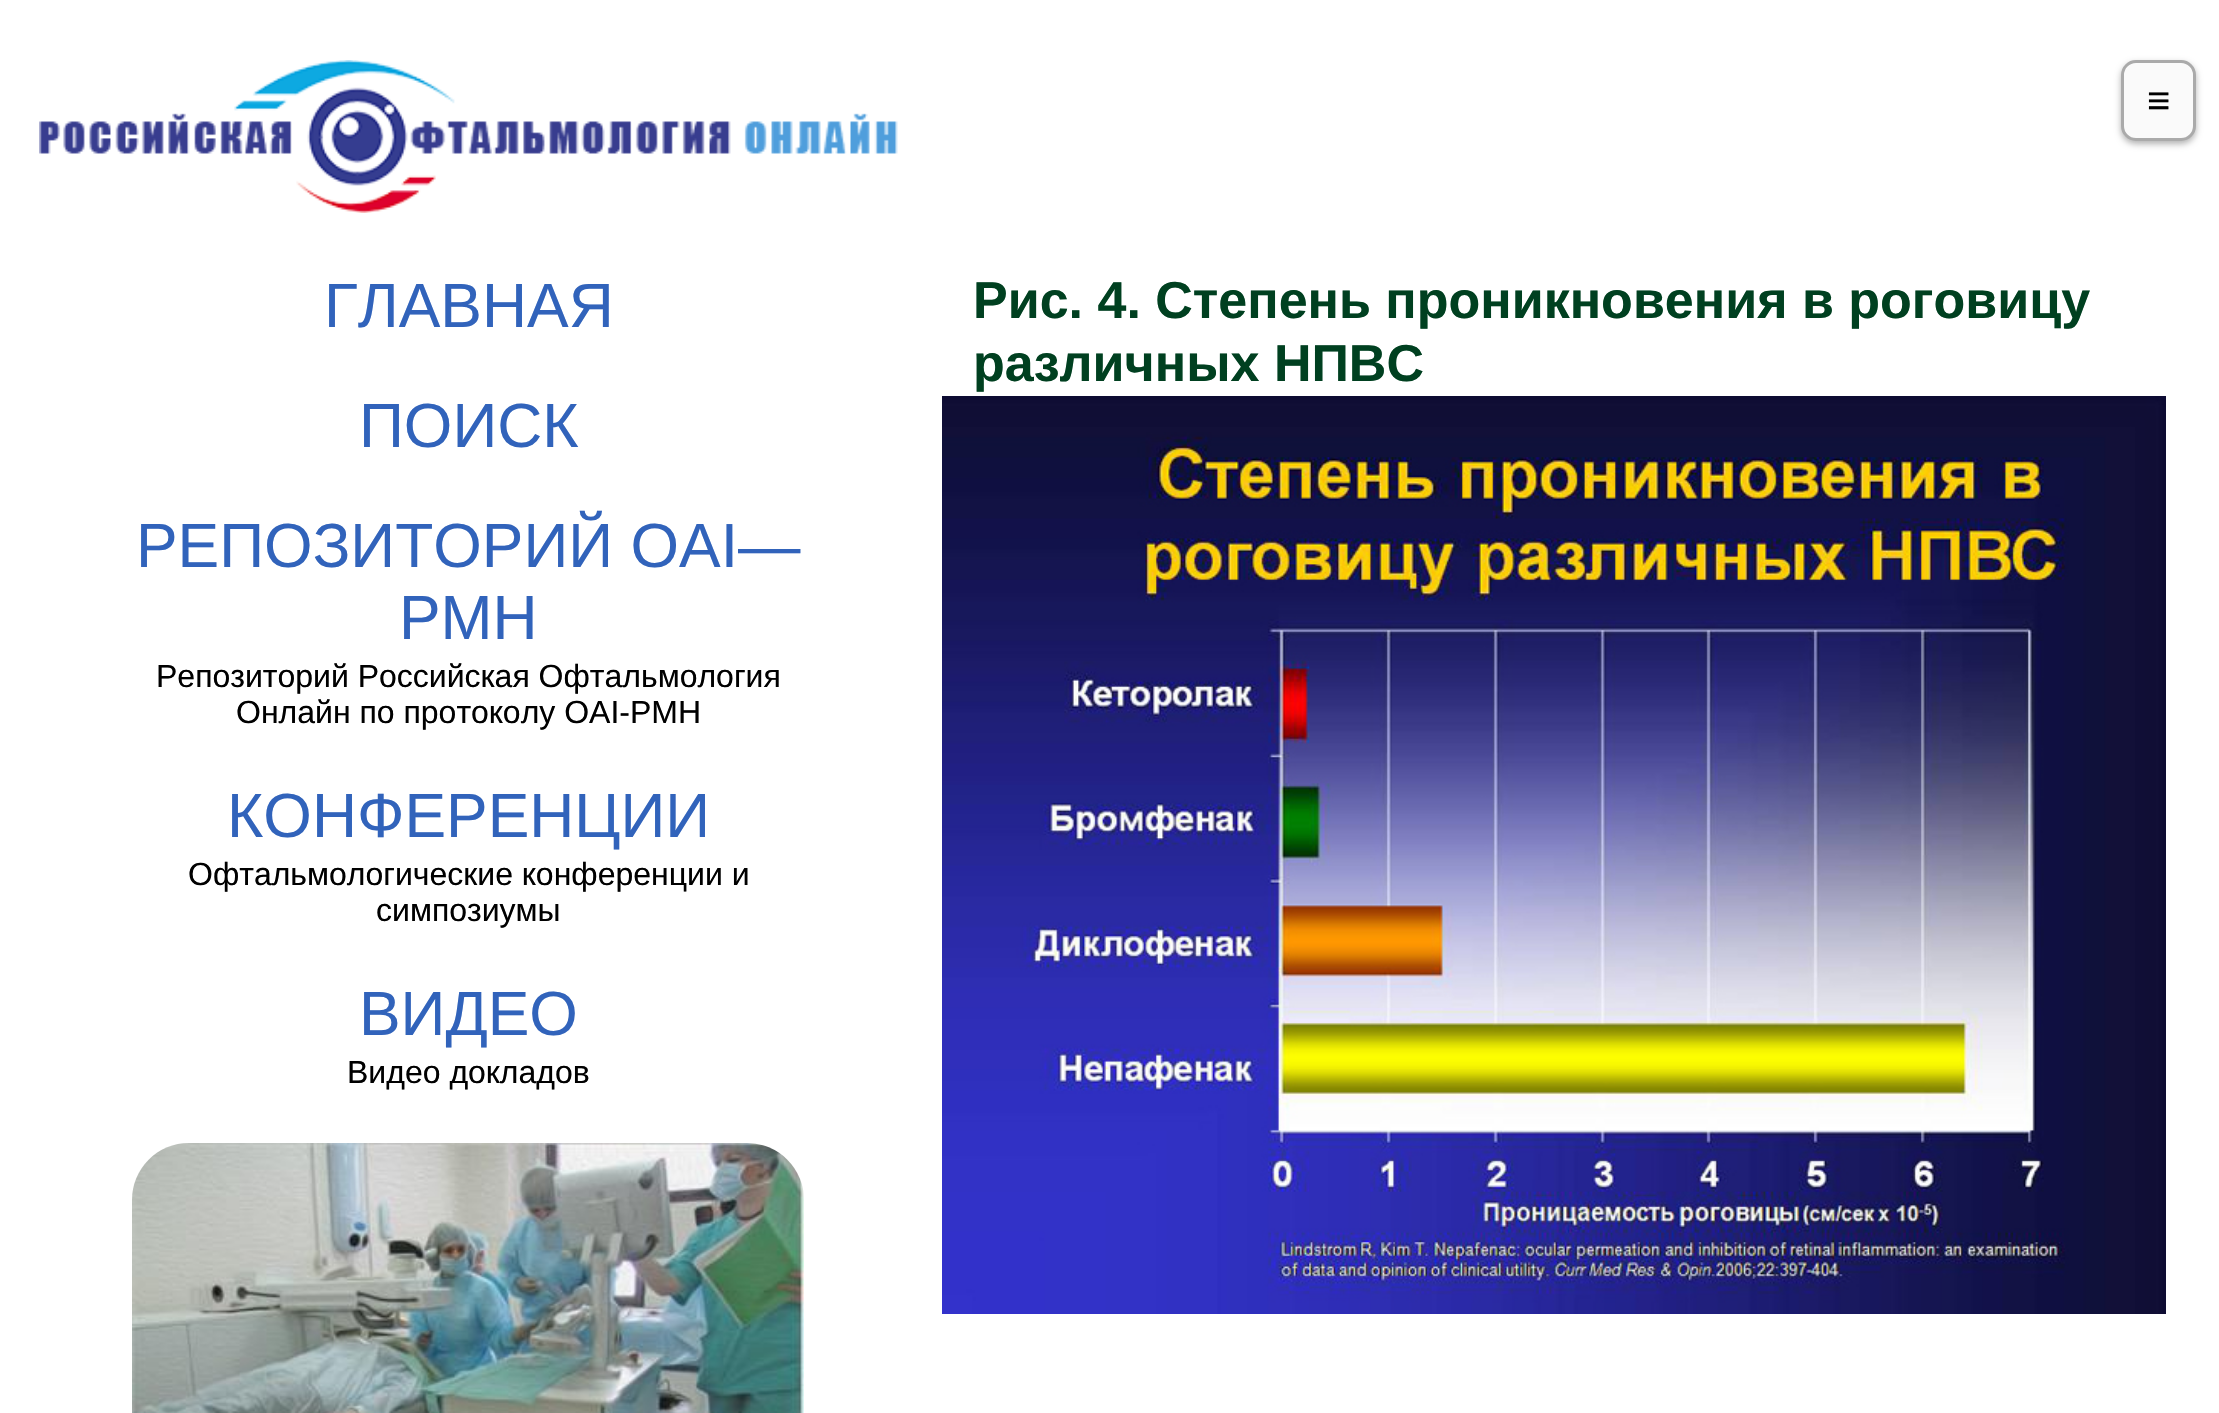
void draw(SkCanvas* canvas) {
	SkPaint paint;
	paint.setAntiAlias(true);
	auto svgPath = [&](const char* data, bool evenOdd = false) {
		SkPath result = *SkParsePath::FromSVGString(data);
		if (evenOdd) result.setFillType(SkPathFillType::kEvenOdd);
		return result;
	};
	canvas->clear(0xffffffff);
	canvas->drawImageRect(SkImages::DeferredFromEncodedData(SkData::MakeFromFileName("img1.png")), SkRect::MakeXYWH(39, 60, 859, 153), SkSamplingOptions());
	paint.setColor(0x4d000000);
	paint.setMaskFilter(SkMaskFilter::MakeBlur(kNormal_SkBlurStyle, 3));
	canvas->drawRoundRect(SkRect::MakeXYWH(2121, 63, 75, 81), 15, 15, paint);
	paint.setMaskFilter(nullptr);
	paint.setColor(0xfffafafa);
	canvas->drawRoundRect(SkRect::MakeXYWH(2122.5, 61.5, 72, 78), 13.5, 13.5, paint);
	paint.setStroke(true);
	paint.setStrokeWidth(3);
	paint.setColor(0xffaaaaaa);
	canvas->drawRoundRect(SkRect::MakeXYWH(2122.5, 61.5, 72, 78), 13.5, 13.5, paint);
	SkFont f1(fontMgr->matchFamilyStyle("Liberation Sans", SkFontStyle::Normal()), 40);
	f1.setSubpixel(true);
	paint.setStroke(false);
	paint.setColor(0xff000000);
	canvas->drawString("≡", 2147, 114, f1, paint);
	SkFont f2(fontMgr->matchFamilyStyle("Liberation Sans", SkFontStyle::Normal()), 62.4);
	f2.setSubpixel(true);
	paint.setColor(0xff3163bb);
	canvas->drawString("ГЛАВНАЯ", 324, 327, f2, paint);
	canvas->drawString("ПОИСК", 359, 447, f2, paint);
	canvas->drawString("РЕПОЗИТОРИЙ OAI—", 136, 567, f2, paint);
	canvas->drawString("PMH", 399, 639, f2, paint);
	SkFont f3(fontMgr->matchFamilyStyle("Liberation Sans", SkFontStyle::Normal()), 32);
	f3.setSubpixel(true);
	paint.setColor(0xff000000);
	canvas->drawString("Репозиторий Российская Офтальмология", 156, 687, f3, paint);
	canvas->drawString("Онлайн по протоколу OAI-PMH", 236, 723, f3, paint);
	paint.setColor(0xff3163bb);
	canvas->drawString("КОНФЕРЕНЦИИ", 227, 837, f2, paint);
	paint.setColor(0xff000000);
	canvas->drawString("Офтальмологические конференции и", 188, 885, f3, paint);
	canvas->drawString("симпозиумы", 376, 921, f3, paint);
	paint.setColor(0xff3163bb);
	canvas->drawString("ВИДЕО", 359, 1035, f2, paint);
	paint.setColor(0xff000000);
	canvas->drawString("Видео докладов", 347, 1083, f3, paint);
	paint.setColor(0xfff5f5f5);
	canvas->drawPath(svgPath("M189 1141.5H747C779.5 1141.5 805.5 1167.5 805.5 1200V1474.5H130.5V1200C130.5 1167.5 156.5 1141.5 189 1141.5Z"), paint);
	paint.setStroke(true);
	paint.setColor(0xffffffff);
	canvas->drawPath(svgPath("M189 1141.5H747C779.5 1141.5 805.5 1167.5 805.5 1200V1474.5H130.5V1200C130.5 1167.5 156.5 1141.5 189 1141.5Z"), paint);
	canvas->drawImageRect(SkImages::DeferredFromEncodedData(SkData::MakeFromFileName("img2.png")), SkRect::MakeXYWH(132, 1143, 672, 270), SkSamplingOptions());
	SkFont f4(fontMgr->matchFamilyStyle("Liberation Sans", SkFontStyle::Bold()), 52);
	f4.setSubpixel(true);
	paint.setStroke(false);
	paint.setColor(0xff004020);
	canvas->drawString("Рис. 4. Степень проникновения в роговицу", 973, 318, f4, paint);
	canvas->drawString("различных НПВС", 973, 381, f4, paint);
	canvas->drawImageRect(SkImages::DeferredFromEncodedData(SkData::MakeFromFileName("img3.png")), SkRect::MakeXYWH(942, 396, 1224, 918), SkSamplingOptions());
}
